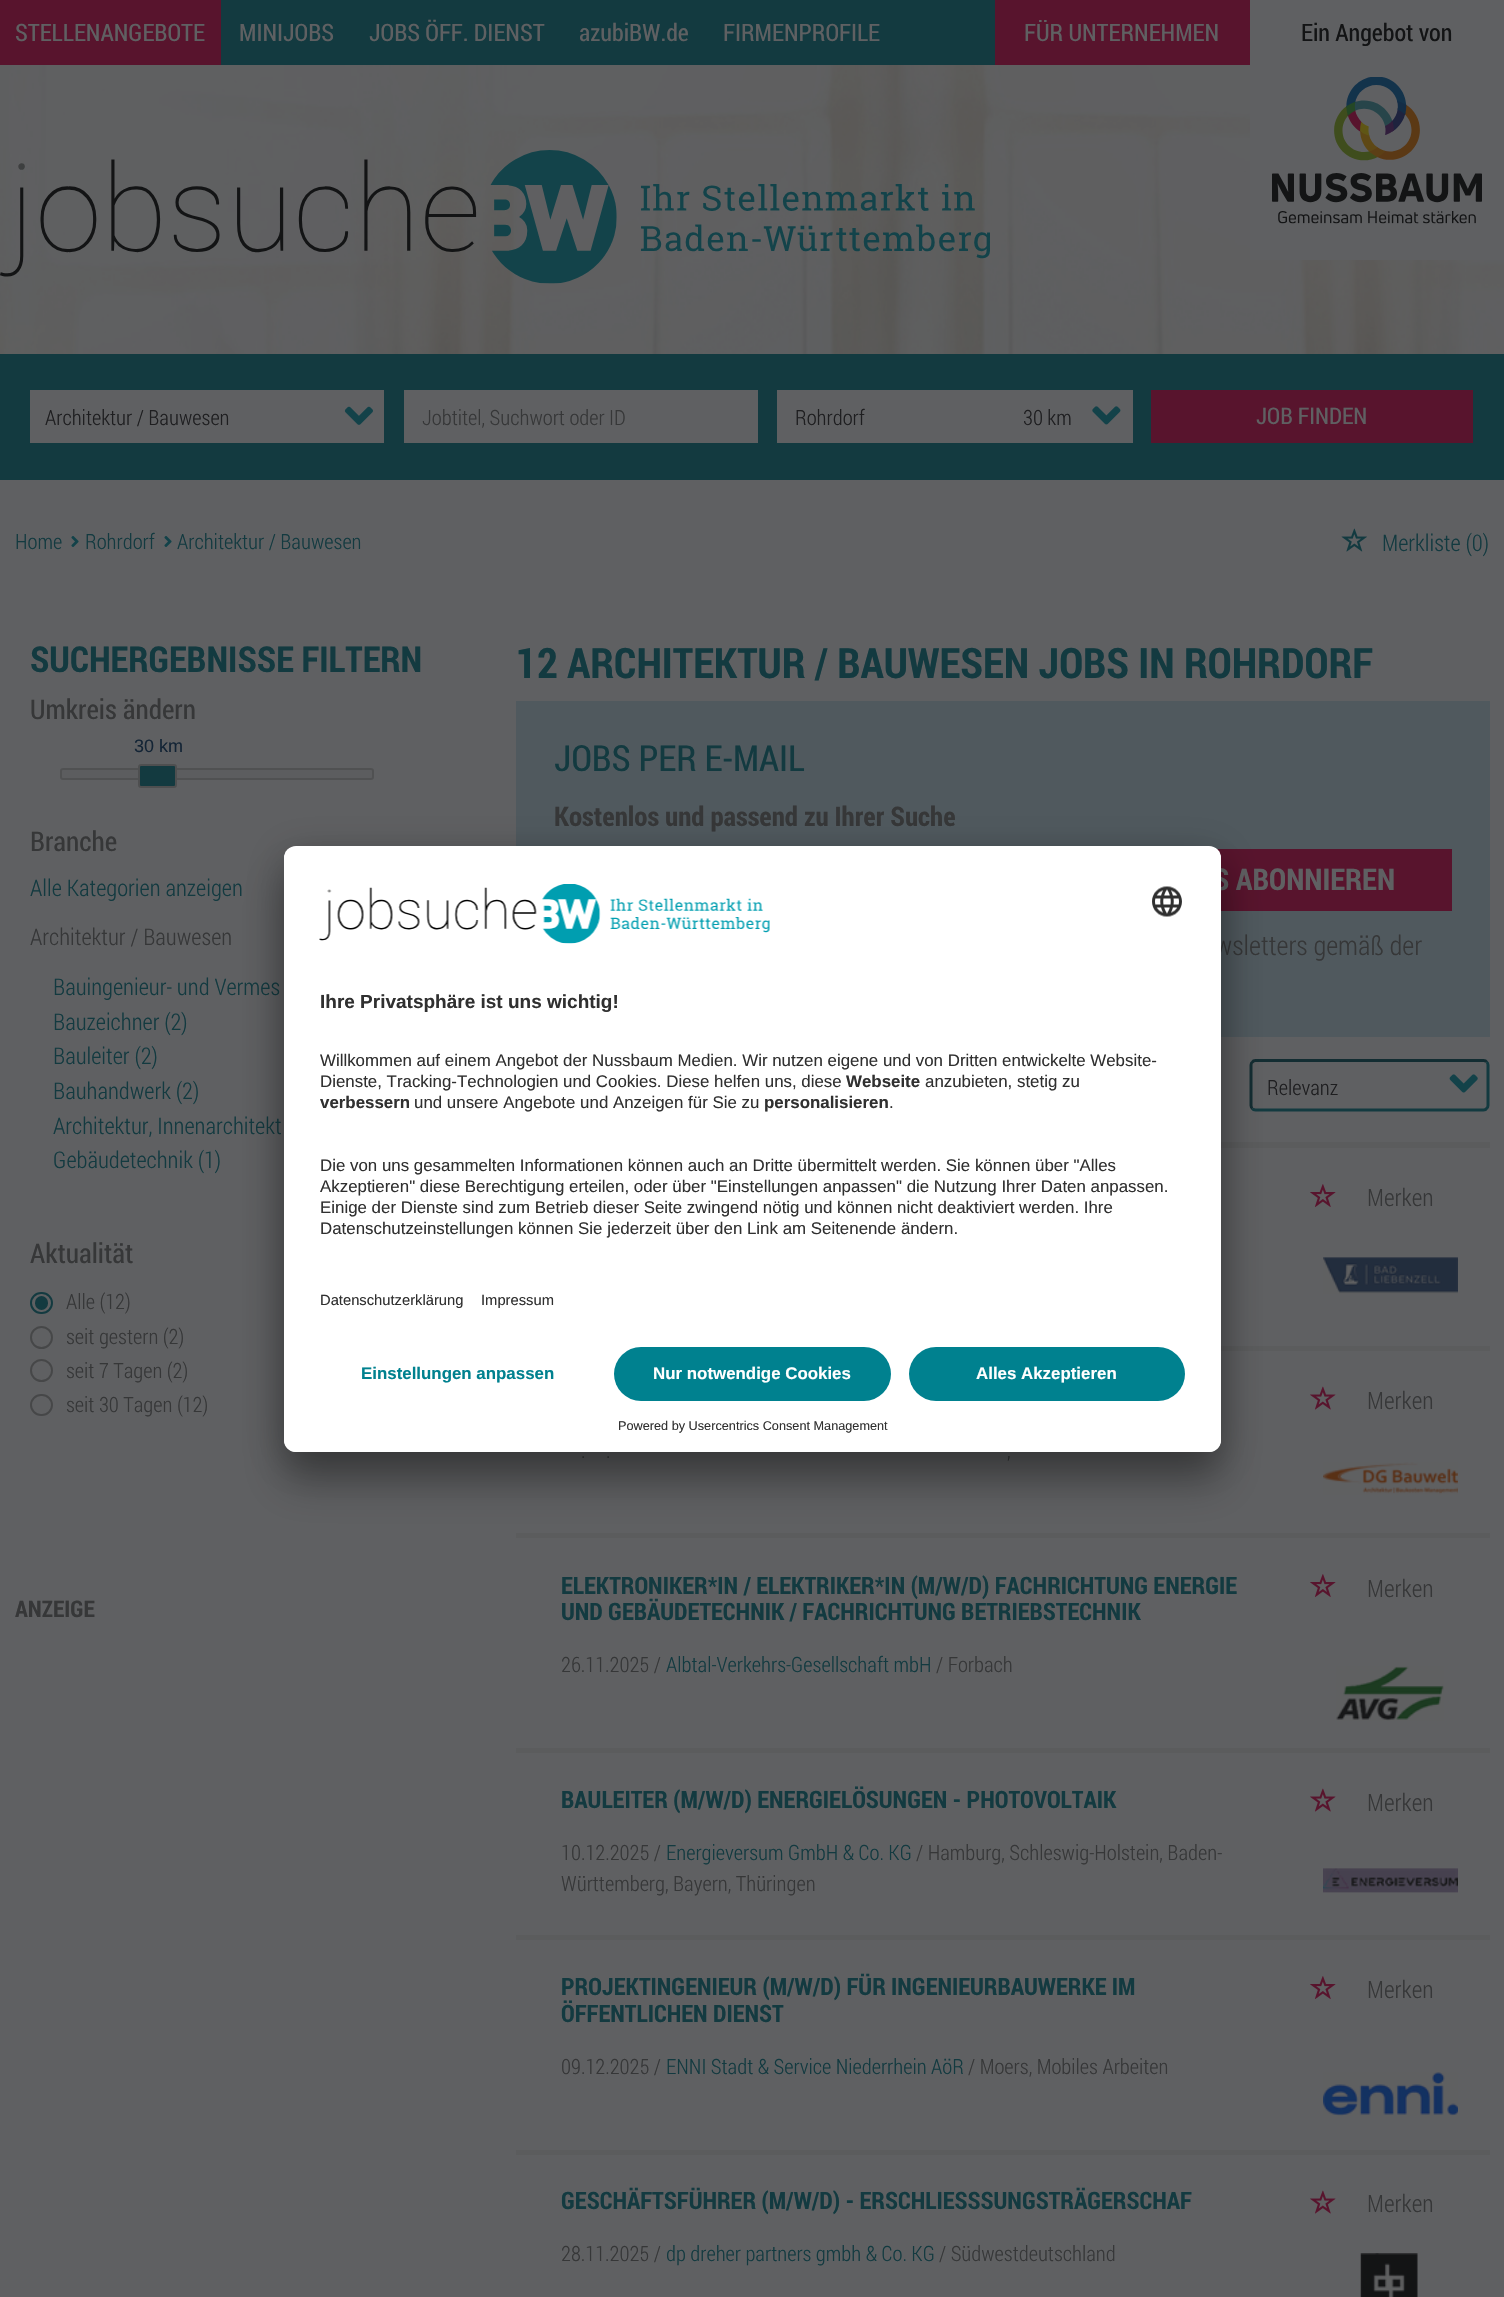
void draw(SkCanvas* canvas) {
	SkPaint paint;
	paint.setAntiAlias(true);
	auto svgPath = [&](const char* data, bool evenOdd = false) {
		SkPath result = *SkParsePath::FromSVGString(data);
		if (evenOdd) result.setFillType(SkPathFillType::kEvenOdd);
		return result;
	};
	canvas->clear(0xff5f6062);
	canvas->drawImageRect(SkImages::DeferredFromEncodedData(SkData::MakeFromFileName("img1.png")), SkRect::MakeXYWH(0, 65, 1504, 289), SkSamplingOptions());
	paint.setColor(0xff133a40);
	canvas->drawRect(SkRect::MakeXYWH(221, 0, 774, 65), paint);
	paint.setColor(0xff58142d);
	canvas->drawRect(SkRect::MakeXYWH(0, 0, 221, 65), paint);
	SkFont f1(fontMgr->matchFamilyStyle("Roboto Condensed", SkFontStyle::Normal()), 24);
	f1.setSubpixel(true);
	paint.setColor(0xff5f6062);
	canvas->drawString("STELLENANGEBOTE", 15, 41, f1, paint);
	canvas->drawString("MINIJOBS", 239, 41, f1, paint);
	canvas->drawString("JOBS ÖFF. DIENST", 369, 41, f1, paint);
	canvas->drawString("azubiBW.de", 579, 41, f1, paint);
	canvas->drawString("FIRMENPROFILE", 723, 41, f1, paint);
	paint.setColor(0xff58142d);
	canvas->drawRect(SkRect::MakeXYWH(995, 0, 255, 65), paint);
	paint.setColor(0xff5f6062);
	canvas->drawString("FÜR UNTERNEHMEN", 1024, 41, f1, paint);
	paint.setColor(0xff131415);
	canvas->drawString("Ein Angebot von", 1301, 41, f1, paint);
	paint.setColor(0xff5f6062);
	canvas->drawRect(SkRect::MakeXYWH(1250, 65, 254, 195), paint);
	canvas->drawImageRect(SkImages::DeferredFromEncodedData(SkData::MakeFromFileName("img2.png")), SkRect::MakeXYWH(1272, 77, 210, 147), SkSamplingOptions());
	canvas->drawImageRect(SkImages::DeferredFromEncodedData(SkData::MakeFromFileName("img3.png")), SkRect::MakeXYWH(0, 150, 990, 134), SkSamplingOptions());
	paint.setColor(0xff133a40);
	canvas->drawRect(SkRect::MakeXYWH(0, 354, 1504, 126), paint);
	paint.setColor(0xff5f6062);
	canvas->drawRect(SkRect::MakeXYWH(30, 390, 354, 53), paint);
	SkFont f2(fontMgr->matchFamilyStyle("Roboto Condensed", SkFontStyle(300, SkFontStyle::kNormal_Width, SkFontStyle::kUpright_Slant)), 21);
	f2.setSubpixel(true);
	paint.setColor(0xff1e1e20);
	canvas->drawString("Architektur / Bauwesen", 45, 425, f2, paint);
	canvas->drawImageRect(SkImages::DeferredFromEncodedData(SkData::MakeFromFileName("img4.png")), SkRect::MakeXYWH(344, 406, 29, 19), SkSamplingOptions());
	paint.setColor(0xff5f6062);
	canvas->drawRect(SkRect::MakeXYWH(404, 390, 354, 53), paint);
	paint.setColor(0xff363738);
	canvas->drawString("Jobtitel, Suchwort oder ID", 422, 425, f2, paint);
	paint.setColor(0xff5f6062);
	canvas->drawRect(SkRect::MakeXYWH(777, 390, 356, 53), paint);
	paint.setColor(0xff1e1e20);
	canvas->drawString("Rohrdorf", 795, 425, f2, paint);
	canvas->drawString("30 km", 1023, 425, f2, paint);
	canvas->drawImageRect(SkImages::DeferredFromEncodedData(SkData::MakeFromFileName("img5.png")), SkRect::MakeXYWH(1092, 406, 29, 19), SkSamplingOptions());
	paint.setColor(0xff58142d);
	canvas->drawRect(SkRect::MakeXYWH(1151, 390, 322, 53), paint);
	SkFont f3(fontMgr->matchFamilyStyle("Roboto Condensed", SkFontStyle::Normal()), 23);
	f3.setSubpixel(true);
	paint.setColor(0xff5f6062);
	canvas->drawString("JOB FINDEN", 1256, 424, f3, paint);
	paint.setColor(0xff133a40);
	canvas->drawString("Home", 15, 549, f2, paint);
	canvas->drawImageRect(SkImages::DeferredFromEncodedData(SkData::MakeFromFileName("img6.png")), SkRect::MakeXYWH(71, 536, 8, 11), SkSamplingOptions());
	canvas->drawString("Rohrdorf", 85, 549, f2, paint);
	canvas->drawImageRect(SkImages::DeferredFromEncodedData(SkData::MakeFromFileName("img6.png")), SkRect::MakeXYWH(164, 536, 8, 11), SkSamplingOptions());
	canvas->drawString("Architektur / Bauwesen", 177, 549, f2, paint);
	canvas->drawImageRect(SkImages::DeferredFromEncodedData(SkData::MakeFromFileName("img7.png")), SkRect::MakeXYWH(1341, 528, 26, 24), SkSamplingOptions());
	SkFont f4(fontMgr->matchFamilyStyle("Roboto Condensed", SkFontStyle(300, SkFontStyle::kNormal_Width, SkFontStyle::kUpright_Slant)), 23);
	f4.setSubpixel(true);
	canvas->drawString("Merkliste (0)", 1382, 551, f4, paint);
	SkFont f5(fontMgr->matchFamilyStyle("Roboto Condensed", SkFontStyle::Bold()), 35.75);
	f5.setSubpixel(true);
	canvas->drawString("SUCHERGEBNISSE FILTERN", 30, 672, f5, paint);
	SkFont f6(fontMgr->matchFamilyStyle("Roboto Condensed", SkFontStyle::Normal()), 27.25);
	f6.setSubpixel(true);
	paint.setColor(0xff363738);
	canvas->drawString("Umkreis ändern", 30, 719, f6, paint);
	paint.setColor(0xff5c5d5f);
	canvas->drawRoundRect(SkRect::MakeXYWH(61, 769, 312, 10), 2, 2, paint);
	paint.setStroke(true);
	paint.setStrokeWidth(2);
	paint.setColor(0xff505152);
	canvas->drawRoundRect(SkRect::MakeXYWH(61, 769, 312, 10), 2, 2, paint);
	paint.setStroke(false);
	paint.setColor(0xff133a40);
	canvas->drawRoundRect(SkRect::MakeXYWH(139, 765, 37, 22), 2, 2, paint);
	paint.setStroke(true);
	paint.setColor(0xff4e4f50);
	canvas->drawRoundRect(SkRect::MakeXYWH(139, 765, 37, 22), 2, 2, paint);
	SkFont f7(fontMgr->matchFamilyStyle("Liberation Sans", SkFontStyle::Normal()), 18);
	f7.setSubpixel(true);
	paint.setStroke(false);
	paint.setColor(0xff132435);
	canvas->drawString("30 km", 134, 752, f7, paint);
	paint.setColor(0xff363738);
	canvas->drawString("Branche", 30, 851, f6, paint);
	paint.setColor(0xff133a40);
	canvas->drawString("Alle Kategorien anzeigen", 30, 896, f4, paint);
	paint.setColor(0xff363738);
	canvas->drawString("Architektur / Bauwesen", 30, 945, f4, paint);
	paint.setColor(0xff133a40);
	canvas->drawString("Bauingenieur- und Vermes", 53, 995, f4, paint);
	canvas->drawString("Bauzeichner (2)", 53, 1030, f4, paint);
	canvas->drawString("Bauleiter (2)", 53, 1064, f4, paint);
	canvas->drawString("Bauhandwerk (2)", 53, 1099, f4, paint);
	canvas->drawString("Architektur, Innenarchitekt", 53, 1134, f4, paint);
	canvas->drawString("Gebäudetechnik (1)", 53, 1168, f4, paint);
	paint.setColor(0xff363738);
	canvas->drawString("Aktualität", 30, 1263, f6, paint);
	paint.setStroke(true);
	paint.setColor(0xff133a40);
	canvas->drawRoundRect(SkRect::MakeXYWH(31, 1293, 21, 20), 10, 10, paint);
	paint.setStroke(false);
	paint.setColor(0xff363738);
	canvas->drawString("Alle (12)", 66, 1309, f2, paint);
	paint.setColor(0xff133a40);
	canvas->drawRoundRect(SkRect::MakeXYWH(35, 1296, 13, 14), 6.5, 6.5, paint);
	paint.setStroke(true);
	paint.setColor(0xff464748);
	canvas->drawCircle(41.5, 1337.5, 10.5, paint);
	paint.setStroke(false);
	paint.setColor(0xff363738);
	canvas->drawString("seit gestern (2)", 66, 1344, f2, paint);
	paint.setStroke(true);
	paint.setColor(0xff464748);
	canvas->drawCircle(41.5, 1370.5, 10.5, paint);
	paint.setStroke(false);
	paint.setColor(0xff363738);
	canvas->drawString("seit 7 Tagen (2)", 66, 1378, f2, paint);
	paint.setStroke(true);
	paint.setColor(0xff464748);
	canvas->drawRoundRect(SkRect::MakeXYWH(31, 1395, 21, 20), 10, 10, paint);
	paint.setStroke(false);
	paint.setColor(0xff363738);
	canvas->drawString("seit 30 Tagen (12)", 66, 1412, f2, paint);
	SkFont f8(fontMgr->matchFamilyStyle("Roboto Condensed", SkFontStyle::Bold()), 23);
	f8.setSubpixel(true);
	canvas->drawString("ANZEIGE", 15, 1617, f8, paint);
	SkFont f9(fontMgr->matchFamilyStyle("Roboto Condensed", SkFontStyle::Bold()), 42);
	f9.setSubpixel(true);
	paint.setColor(0xff133a40);
	canvas->drawString("12 ARCHITEKTUR / BAUWESEN JOBS IN ROHRDORF", 516, 678, f9, paint);
	paint.setColor(0xff50595e);
	canvas->drawRect(SkRect::MakeXYWH(516, 701, 974, 336), paint);
	SkFont f10(fontMgr->matchFamilyStyle("Roboto Condensed", SkFontStyle::Normal()), 36);
	f10.setSubpixel(true);
	paint.setColor(0xff133a40);
	canvas->drawString("JOBS PER E-MAIL", 554, 771, f10, paint);
	SkFont f11(fontMgr->matchFamilyStyle("Roboto Condensed", SkFontStyle::Bold()), 27);
	f11.setSubpixel(true);
	paint.setColor(0xff363738);
	canvas->drawString("Kostenlos und passend zu Ihrer Suche", 554, 826, f11, paint);
	paint.setColor(0xff58142d);
	canvas->drawRect(SkRect::MakeXYWH(1216, 849, 236, 62), paint);
	SkFont f12(fontMgr->matchFamilyStyle("Roboto Condensed", SkFontStyle::Bold()), 30);
	f12.setSubpixel(true);
	paint.setColor(0xff5f6062);
	canvas->drawString("S ABONNIEREN", 1213, 890, f12, paint);
	SkFont f13(fontMgr->matchFamilyStyle("Roboto Condensed", SkFontStyle(300, SkFontStyle::kNormal_Width, SkFontStyle::kUpright_Slant)), 27);
	f13.setSubpixel(true);
	paint.setColor(0xff363738);
	canvas->drawString("wsletters gemäß der", 1215, 955, f13, paint);
	paint.setStroke(true);
	paint.setStrokeWidth(3);
	paint.setColor(0xff133a40);
	canvas->drawPath(svgPath("M1486.5 1062C1487.5 1062.5 1488 1064 1488 1065V1105.5C1488 1106.5 1487.5 1108 1486.5 1108.5C1486 1109.5 1484.5 1110 1483.5 1110H1255.5C1254.5 1110 1253 1109.5 1252.5 1108.5"), paint);
	paint.setColor(0xff132d32);
	canvas->drawPath(svgPath("M1252.5 1108.5C1251.5 1108 1251 1106.5 1251 1105.5V1065C1251 1064 1251.5 1062.5 1252.5 1062C1253 1061 1254.5 1060.5 1255.5 1060.5H1483.5C1484.5 1060.5 1486 1061 1486.5 1062"), paint);
	paint.setStroke(false);
	paint.setColor(0xff1e1e20);
	canvas->drawString("Relevanz", 1267, 1095, f2, paint);
	canvas->drawImageRect(SkImages::DeferredFromEncodedData(SkData::MakeFromFileName("img8.png")), SkRect::MakeXYWH(1449, 1074, 29, 19), SkSamplingOptions());
	paint.setColor(0xff5b5c5d);
	canvas->drawRect(SkRect::MakeXYWH(1221, 1142, 269, 6), paint);
	canvas->drawImageRect(SkImages::DeferredFromEncodedData(SkData::MakeFromFileName("img9.png")), SkRect::MakeXYWH(1310, 1184, 26, 23), SkSamplingOptions());
	SkFont f14(fontMgr->matchFamilyStyle("Roboto Condensed", SkFontStyle(300, SkFontStyle::kNormal_Width, SkFontStyle::kUpright_Slant)), 24);
	f14.setSubpixel(true);
	paint.setColor(0xff363738);
	canvas->drawString("Merken", 1367, 1206, f14, paint);
	canvas->drawImageRect(SkImages::DeferredFromEncodedData(SkData::MakeFromFileName("img10.png")), SkRect::MakeXYWH(1323, 1257, 135, 37), SkSamplingOptions());
	paint.setColor(0xff5b5c5d);
	canvas->drawRect(SkRect::MakeXYWH(1221, 1346, 269, 5), paint);
	canvas->drawImageRect(SkImages::DeferredFromEncodedData(SkData::MakeFromFileName("img11.png")), SkRect::MakeXYWH(1310, 1386, 26, 24), SkSamplingOptions());
	paint.setColor(0xff363738);
	canvas->drawString("Merken", 1367, 1409, f14, paint);
	canvas->drawString(".", 581, 1458, f2, paint);
	canvas->drawString(".", 606, 1458, f2, paint);
	canvas->drawString(",", 1007, 1458, f2, paint);
	canvas->drawImageRect(SkImages::DeferredFromEncodedData(SkData::MakeFromFileName("img12.png")), SkRect::MakeXYWH(1323, 1462, 135, 33), SkSamplingOptions());
	paint.setColor(0xff5b5c5d);
	canvas->drawRect(SkRect::MakeXYWH(516, 1533, 974, 5), paint);
	SkFont f15(fontMgr->matchFamilyStyle("Roboto Condensed", SkFontStyle::Bold()), 24);
	f15.setSubpixel(true);
	paint.setColor(0xff133a40);
	canvas->drawString("ELEKTRONIKER*IN / ELEKTRIKER*IN (M/W/D) FACHRICHTUNG ENERGIE", 561, 1594, f15, paint);
	canvas->drawString("UND GEBÄUDETECHNIK / FACHRICHTUNG BETRIEBSTECHNIK", 561, 1620, f15, paint);
	canvas->drawImageRect(SkImages::DeferredFromEncodedData(SkData::MakeFromFileName("img9.png")), SkRect::MakeXYWH(1310, 1574, 26, 23), SkSamplingOptions());
	paint.setColor(0xff363738);
	canvas->drawString("Merken", 1367, 1597, f14, paint);
	canvas->drawString("26.11.2025 /", 561, 1672, f2, paint);
	paint.setColor(0xff133a40);
	canvas->drawString("Albtal-Verkehrs-Gesellschaft mbH", 666, 1672, f2, paint);
	paint.setColor(0xff363738);
	canvas->drawString("/ Forbach", 936, 1672, f2, paint);
	canvas->drawImageRect(SkImages::DeferredFromEncodedData(SkData::MakeFromFileName("img13.png")), SkRect::MakeXYWH(1336, 1666, 108, 55), SkSamplingOptions());
	paint.setColor(0xff5b5c5d);
	canvas->drawRect(SkRect::MakeXYWH(516, 1748, 974, 5), paint);
	paint.setColor(0xff133a40);
	canvas->drawString("BAULEITER (M/W/D) ENERGIELÖSUNGEN - PHOTOVOLTAIK", 561, 1808, f15, paint);
	canvas->drawImageRect(SkImages::DeferredFromEncodedData(SkData::MakeFromFileName("img11.png")), SkRect::MakeXYWH(1310, 1788, 26, 24), SkSamplingOptions());
	paint.setColor(0xff363738);
	canvas->drawString("Merken", 1367, 1811, f14, paint);
	canvas->drawString("10.12.2025 /", 561, 1860, f2, paint);
	paint.setColor(0xff133a40);
	canvas->drawString("Energieversum GmbH & Co. KG", 666, 1860, f2, paint);
	paint.setColor(0xff363738);
	canvas->drawString("/ Hamburg, Schleswig-Holstein, Baden-", 916, 1860, f2, paint);
	canvas->drawString("Württemberg, Bayern, Thüringen", 561, 1891, f2, paint);
	canvas->drawImageRect(SkImages::DeferredFromEncodedData(SkData::MakeFromFileName("img14.png")), SkRect::MakeXYWH(1323, 1868, 135, 25), SkSamplingOptions());
	paint.setColor(0xff5b5c5d);
	canvas->drawRect(SkRect::MakeXYWH(516, 1935, 974, 5), paint);
	paint.setColor(0xff133a40);
	canvas->drawString("PROJEKTINGENIEUR (M/W/D) FÜR INGENIEURBAUWERKE IM", 561, 1995, f15, paint);
	canvas->drawString("ÖFFENTLICHEN DIENST", 561, 2022, f15, paint);
	canvas->drawImageRect(SkImages::DeferredFromEncodedData(SkData::MakeFromFileName("img9.png")), SkRect::MakeXYWH(1310, 1976, 26, 23), SkSamplingOptions());
	paint.setColor(0xff363738);
	canvas->drawString("Merken", 1367, 1998, f14, paint);
	canvas->drawString("09.12.2025 /", 561, 2074, f2, paint);
	paint.setColor(0xff133a40);
	canvas->drawString("ENNI Stadt & Service Niederrhein AöR", 666, 2074, f2, paint);
	paint.setColor(0xff363738);
	canvas->drawString("/ Moers, Mobiles Arbeiten", 968, 2074, f2, paint);
	canvas->drawImageRect(SkImages::DeferredFromEncodedData(SkData::MakeFromFileName("img15.png")), SkRect::MakeXYWH(1323, 2072, 135, 44), SkSamplingOptions());
	paint.setColor(0xff5b5c5d);
	canvas->drawRect(SkRect::MakeXYWH(516, 2150, 974, 5), paint);
	paint.setColor(0xff133a40);
	canvas->drawString("GESCHÄFTSFÜHRER (M/W/D) - ERSCHLIESSSUNGSTRÄGERSCHAF", 561, 2209, f15, paint);
	canvas->drawImageRect(SkImages::DeferredFromEncodedData(SkData::MakeFromFileName("img11.png")), SkRect::MakeXYWH(1310, 2190, 26, 24), SkSamplingOptions());
	paint.setColor(0xff363738);
	canvas->drawString("Merken", 1367, 2212, f14, paint);
	canvas->drawString("28.11.2025 /", 561, 2261, f2, paint);
	paint.setColor(0xff133a40);
	canvas->drawString("dp dreher partners gmbh & Co. KG", 666, 2261, f2, paint);
	paint.setColor(0xff363738);
	canvas->drawString("/ Südwestdeutschland", 939, 2261, f2, paint);
	canvas->drawImageRect(SkImages::DeferredFromEncodedData(SkData::MakeFromFileName("img16.png")), SkRect::MakeXYWH(1360, 2253, 58, 44), SkSamplingOptions());
	paint.setColor(0x4d000000);
	paint.setMaskFilter(SkMaskFilter::MakeBlur(kNormal_SkBlurStyle, 21));
	canvas->drawRoundRect(SkRect::MakeXYWH(284, 876, 937, 606), 12, 12, paint);
	paint.setMaskFilter(nullptr);
	paint.setColor(0x38000000);
	paint.setMaskFilter(SkMaskFilter::MakeBlur(kNormal_SkBlurStyle, 19.5));
	canvas->drawRoundRect(SkRect::MakeXYWH(284, 854, 937, 606), 12, 12, paint);
	paint.setMaskFilter(nullptr);
	paint.setColor(0xffffffff);
	canvas->drawRoundRect(SkRect::MakeXYWH(284, 846, 937, 606), 12, 12, paint);
	canvas->save();
	canvas->clipPath(svgPath("M296 846H1209C1215.5 846 1221 851.5 1221 858V1440C1221 1446.5 1215.5 1452 1209 1452H296C289.5 1452 284 1446.5 284 1440V858C284 851.5 289.5 846 296 846Z"), true);
	canvas->clipPath(svgPath("M296 846H1209C1215.5 846 1221 851.5 1221 858V1335H284V858C284 851.5 289.5 846 296 846Z"), true);
	canvas->drawRect(SkRect::MakeXYWH(284, 848, 937, 487), paint);
	canvas->restore();
	canvas->drawImageRect(SkImages::DeferredFromEncodedData(SkData::MakeFromFileName("img17.png")), SkRect::MakeXYWH(319, 884, 451, 60), SkSamplingOptions());
	canvas->drawImageRect(SkImages::DeferredFromEncodedData(SkData::MakeFromFileName("img18.png")), SkRect::MakeXYWH(1152, 886, 30, 31), SkSamplingOptions());
	SkFont f16(fontMgr->matchFamilyStyle("Liberation Sans", SkFontStyle::Bold()), 19);
	f16.setSubpixel(true);
	paint.setColor(0xff303030);
	canvas->drawString("Ihre Privatsphäre ist uns wichtig!", 320, 1008, f16, paint);
	SkFont f17(fontMgr->matchFamilyStyle("Liberation Sans", SkFontStyle::Normal()), 16.88);
	f17.setSubpixel(true);
	canvas->drawString("Willkommen auf einem Angebot der Nussbaum Medien. Wir nutzen eigene und von Dritten entwickelte Website-", 320, 1066, f17, paint);
	canvas->drawString("Dienste, Tracking-Technologien und Cookies. Diese helfen uns, diese", 320, 1087, f17, paint);
	SkFont f18(fontMgr->matchFamilyStyle("Liberation Sans", SkFontStyle::Bold()), 16.88);
	f18.setSubpixel(true);
	canvas->drawString("Webseite", 846, 1087, f18, paint);
	canvas->drawString("anzubieten, stetig zu", 925, 1087, f17, paint);
	canvas->drawString("verbessern", 320, 1108, f18, paint);
	canvas->drawString("und unsere Angebote und Anzeigen für Sie zu", 414, 1108, f17, paint);
	canvas->drawString("personalisieren", 764, 1108, f18, paint);
	canvas->drawString(".", 889, 1108, f17, paint);
	canvas->drawString("Die von uns gesammelten Informationen können auch an Dritte übermittelt werden. Sie können über \"Alles", 320, 1171, f17, paint);
	canvas->drawString("Akzeptieren\" diese Berechtigung erteilen, oder über \"Einstellungen anpassen\" die Nutzung Ihrer Daten anpassen.", 320, 1192, f17, paint);
	canvas->drawString("Einige der Dienste sind zum Betrieb dieser Seite zwingend nötig und können nicht deaktiviert werden. Ihre", 320, 1213, f17, paint);
	canvas->drawString("Datenschutzeinstellungen können Sie jederzeit über den Link am Seitenende ändern.", 320, 1234, f17, paint);
	SkFont f19(fontMgr->matchFamilyStyle("Liberation Sans", SkFontStyle::Normal()), 14.75);
	f19.setSubpixel(true);
	canvas->drawString("Datenschutzerklärung", 320, 1305, f19, paint);
	canvas->drawString("Impressum", 481, 1305, f19, paint);
	paint.setColor(0xffffffff);
	canvas->drawPath(svgPath("M284 1335H1221V1440C1221 1446.5 1215.5 1452 1209 1452H296C289.5 1452 284 1446.5 284 1440Z"), paint);
	paint.setColor(0xff00818f);
	canvas->drawString("Einstellungen anpassen", 361, 1379, f18, paint);
	canvas->drawRoundRect(SkRect::MakeXYWH(614, 1347, 277, 54), 27, 27, paint);
	paint.setColor(0xffffffff);
	canvas->drawString("Nur notwendige Cookies", 653, 1379, f18, paint);
	paint.setColor(0xff00818f);
	canvas->drawRoundRect(SkRect::MakeXYWH(909, 1347, 276, 54), 27, 27, paint);
	paint.setColor(0xffffffff);
	canvas->drawString("Alles Akzeptieren", 976, 1379, f18, paint);
	SkFont f20(fontMgr->matchFamilyStyle("Liberation Sans", SkFontStyle::Normal()), 12.7);
	f20.setSubpixel(true);
	paint.setColor(0xff303030);
	canvas->drawString("Powered by Usercentrics Consent Management", 618, 1430, f20, paint);
}
